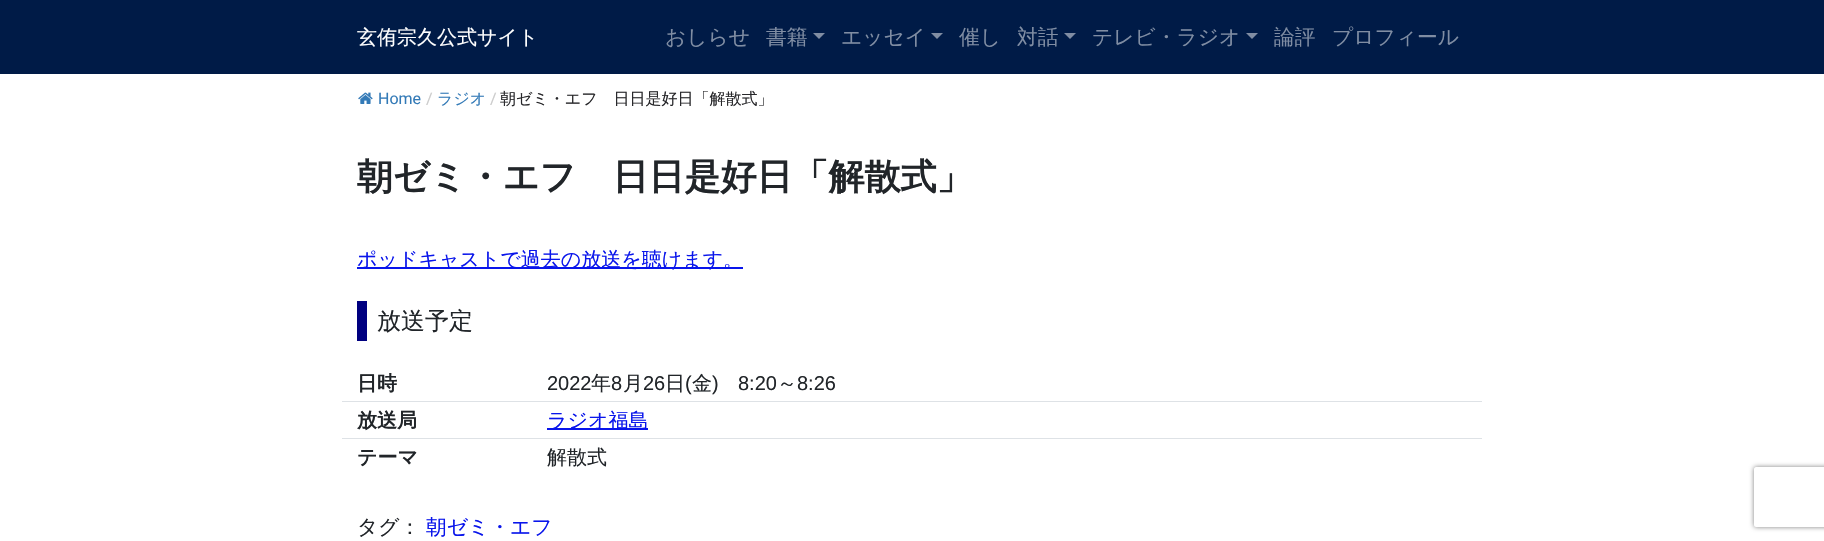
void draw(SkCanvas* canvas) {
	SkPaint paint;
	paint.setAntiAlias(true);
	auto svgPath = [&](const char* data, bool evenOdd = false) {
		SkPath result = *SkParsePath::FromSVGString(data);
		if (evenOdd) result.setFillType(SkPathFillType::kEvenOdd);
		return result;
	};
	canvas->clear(0xffffffff);
	paint.setColor(0xff001b47);
	canvas->drawRect(SkRect::MakeXYWH(0, 0, 1824, 74), paint);
	SkFont f1(fontMgr->matchFamilyStyle("WenQuanYi Zen Hei", SkFontStyle(500, SkFontStyle::kNormal_Width, SkFontStyle::kUpright_Slant)), 20);
	f1.setSubpixel(true);
	paint.setColor(0xffffffff);
	canvas->drawString("玄侑宗久公式サイト", 357, 44, f1, paint);
	SkFont f2(fontMgr->matchFamilyStyle("WenQuanYi Zen Hei", SkFontStyle(500, SkFontStyle::kNormal_Width, SkFontStyle::kUpright_Slant)), 20.75);
	f2.setSubpixel(true);
	paint.setColor(0xff808da3);
	canvas->drawString("おしらせ", 665, 44, f2, paint);
	canvas->drawString("書籍", 766, 44, f2, paint);
	canvas->drawPath(svgPath("M813 33H825L819 39Z"), paint);
	canvas->drawString("エッセイ", 841, 44, f2, paint);
	canvas->drawPath(svgPath("M931 33H943L937 39Z"), paint);
	canvas->drawString("催し", 959, 44, f2, paint);
	canvas->drawString("対話", 1017, 44, f2, paint);
	canvas->drawPath(svgPath("M1064 33H1076L1070 39Z"), paint);
	canvas->drawString("テレビ・ラジオ", 1092, 44, f2, paint);
	canvas->drawPath(svgPath("M1246 33H1258L1252 39Z"), paint);
	canvas->drawString("論評", 1274, 44, f2, paint);
	canvas->drawString("プロフィール", 1332, 44, f2, paint);
	canvas->drawImageRect(SkImages::DeferredFromEncodedData(SkData::MakeFromFileName("img1.png")), SkRect::MakeXYWH(358, 92, 15, 12), SkSamplingOptions());
	SkFont f3(fontMgr->matchFamilyStyle("Roboto", SkFontStyle::Normal()), 16);
	f3.setSubpixel(true);
	paint.setColor(0xff337ab7);
	canvas->drawString("Home", 378, 104, f3, paint);
	paint.setColor(0xffcccccc);
	canvas->drawString("/", 426, 104, f3, paint);
	SkFont f4(fontMgr->matchFamilyStyle("WenQuanYi Zen Hei", SkFontStyle(500, SkFontStyle::kNormal_Width, SkFontStyle::kUpright_Slant)), 16);
	f4.setSubpixel(true);
	paint.setColor(0xff337ab7);
	canvas->drawString("ラジオ", 437, 104, f4, paint);
	paint.setColor(0xffcccccc);
	canvas->drawString("/", 490, 104, f3, paint);
	paint.setColor(0xff27272a);
	canvas->drawString("朝ゼミ・エフ　日日是好日「解散式」", 500, 104, f4, paint);
	SkFont f5(fontMgr->matchFamilyStyle("WenQuanYi Zen Hei", SkFontStyle::Bold()), 36);
	f5.setSubpixel(true);
	paint.setColor(0xff212529);
	canvas->drawString("朝ゼミ・エフ　日日是好日「解散式」", 357, 189, f5, paint);
	paint.setColor(0xff0915eb);
	canvas->drawRect(SkRect::MakeXYWH(357, 267, 386, 2), paint);
	canvas->drawString("ポッドキャストで過去の放送を聴けます。", 357, 266, f1, paint);
	paint.setColor(0xff000080);
	canvas->drawRect(SkRect::MakeXYWH(357, 301, 10, 40), paint);
	SkFont f6(fontMgr->matchFamilyStyle("WenQuanYi Zen Hei", SkFontStyle(500, SkFontStyle::kNormal_Width, SkFontStyle::kUpright_Slant)), 24);
	f6.setSubpixel(true);
	paint.setColor(0xff212529);
	canvas->drawString("放送予定", 377, 329, f6, paint);
	paint.setColor(0xffdee2e6);
	canvas->drawRect(SkRect::MakeXYWH(342, 401, 1140, 1), paint);
	SkFont f7(fontMgr->matchFamilyStyle("WenQuanYi Zen Hei", SkFontStyle::Bold()), 20);
	f7.setSubpixel(true);
	paint.setColor(0xff212529);
	canvas->drawString("日時", 357, 390, f7, paint);
	SkFont f8(fontMgr->matchFamilyStyle("Liberation Sans", SkFontStyle::Normal()), 20);
	f8.setSubpixel(true);
	canvas->drawString("2022", 547, 390, f8, paint);
	canvas->drawString("年", 591, 390, f1, paint);
	canvas->drawString("8", 611, 390, f8, paint);
	canvas->drawString("月", 623, 390, f1, paint);
	canvas->drawString("26", 643, 390, f8, paint);
	canvas->drawString("日", 665, 390, f1, paint);
	canvas->drawString("(", 685, 390, f8, paint);
	canvas->drawString("金", 692, 390, f1, paint);
	canvas->drawString(")", 712, 390, f8, paint);
	canvas->drawString("8:20", 738, 390, f8, paint);
	canvas->drawString("～", 777, 390, f1, paint);
	canvas->drawString("8:26", 797, 390, f8, paint);
	paint.setColor(0xffdee2e6);
	canvas->drawRect(SkRect::MakeXYWH(342, 438, 1140, 1), paint);
	paint.setColor(0xff212529);
	canvas->drawString("放送局", 357, 427, f7, paint);
	paint.setColor(0xff0915eb);
	canvas->drawRect(SkRect::MakeXYWH(547, 428, 101, 2), paint);
	canvas->drawString("ラジオ福島", 547, 427, f1, paint);
	paint.setColor(0xff212529);
	canvas->drawString("テーマ", 357, 464, f7, paint);
	canvas->drawString("解散式", 547, 464, f1, paint);
	canvas->drawString("タグ：", 357, 534, f2, paint);
	paint.setColor(0xff0915eb);
	canvas->drawString("朝ゼミ・エフ", 426, 534, f2, paint);
	canvas->save();
	canvas->clipPath(svgPath("M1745 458H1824V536H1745ZM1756 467H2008C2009 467 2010 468 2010 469V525C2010 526 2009 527 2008 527H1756C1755 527 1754 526 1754 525V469C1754 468 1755 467 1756 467Z", true), true);
	paint.setColor(0xff808080);
	paint.setMaskFilter(SkMaskFilter::MakeBlur(kNormal_SkBlurStyle, 2.5));
	canvas->drawRoundRect(SkRect::MakeXYWH(1754, 467, 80, 60), 2, 2, paint);
	paint.setMaskFilter(nullptr);
	canvas->restore();
}
